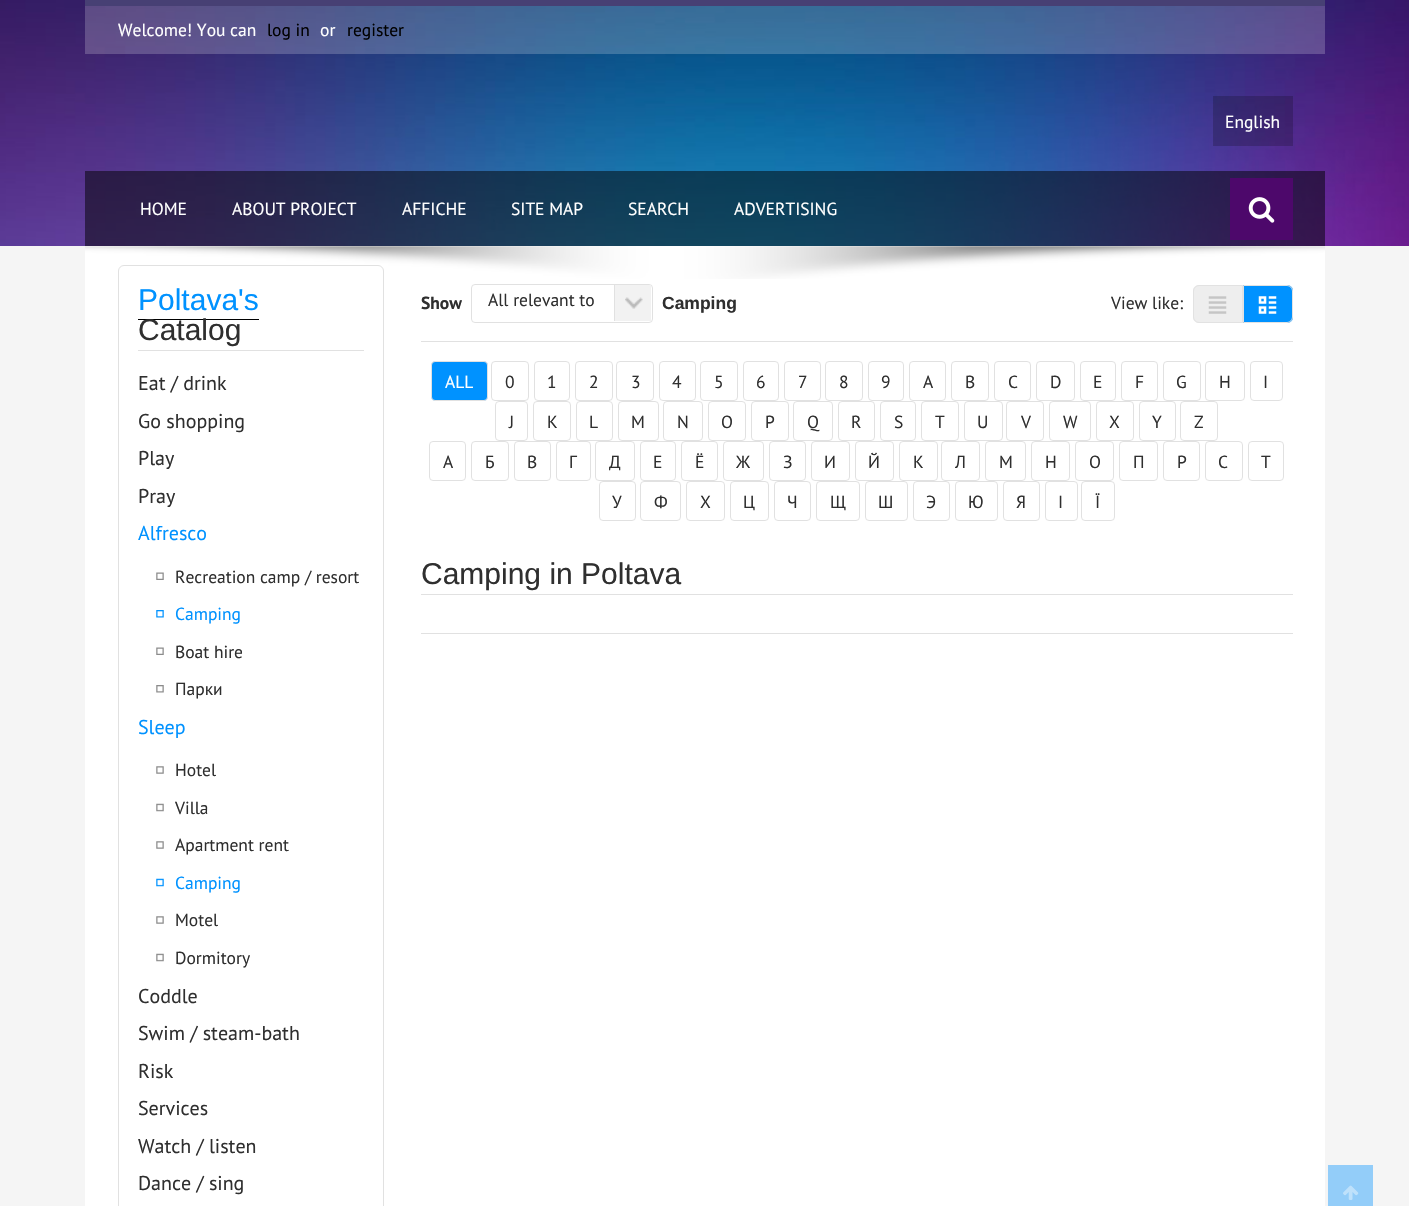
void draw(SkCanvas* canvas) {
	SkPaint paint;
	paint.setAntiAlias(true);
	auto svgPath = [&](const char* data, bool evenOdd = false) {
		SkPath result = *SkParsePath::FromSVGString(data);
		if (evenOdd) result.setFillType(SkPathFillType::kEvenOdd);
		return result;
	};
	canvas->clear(0xfff5f5f5);
	canvas->drawImageRect(SkImages::DeferredFromEncodedData(SkData::MakeFromFileName("img1.png")), SkRect::MakeXYWH(0, 0, 1409, 246), SkSamplingOptions());
	paint.setColor(0x33ffffff);
	canvas->drawRect(SkRect::MakeXYWH(85, 6, 1240, 48), paint);
	paint.setColor(0xff474074);
	canvas->drawRect(SkRect::MakeXYWH(85, 0, 1240, 6), paint);
	SkFont f1(fontMgr->matchFamilyStyle("PT Sans", SkFontStyle::Normal()), 17.5);
	f1.setSubpixel(true);
	paint.setColor(0xffffffff);
	canvas->drawString("Welcome! You can", 118, 36, f1, paint);
	paint.setColor(0xff000000);
	canvas->drawString("log in", 267, 36, f1, paint);
	paint.setColor(0xffffffff);
	canvas->drawString("or", 320, 36, f1, paint);
	paint.setColor(0xff000000);
	canvas->drawString("register", 347, 36, f1, paint);
	paint.setColor(0x33000000);
	canvas->drawRect(SkRect::MakeXYWH(1213, 96, 80, 50), paint);
	paint.setColor(0xffffffff);
	canvas->drawString("English", 1225, 128, f1, paint);
	canvas->drawRect(SkRect::MakeXYWH(85, 246, 1240, 960), paint);
	paint.setStroke(true);
	paint.setStrokeWidth(1);
	paint.setColor(0xffe1e1e1);
	canvas->drawRoundRect(SkRect::MakeXYWH(118.5, 265.5, 265, 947), 5.5, 5.5, paint);
	canvas->drawImageRect(SkImages::DeferredFromEncodedData(SkData::MakeFromFileName("img2.png")), SkRect::MakeXYWH(85, 246, 1240, 33), SkSamplingOptions());
	paint.setStroke(false);
	paint.setColor(0x80000000);
	canvas->drawRect(SkRect::MakeXYWH(85, 171, 1240, 75), paint);
	paint.setColor(0xffffffff);
	canvas->drawString("HOME", 140, 215, f1, paint);
	canvas->drawString("ABOUT PROJECT", 232, 215, f1, paint);
	canvas->drawString("AFFICHE", 402, 215, f1, paint);
	canvas->drawString("SITE MAP", 511, 215, f1, paint);
	canvas->drawString("SEARCH", 628, 215, f1, paint);
	canvas->drawString("ADVERTISING", 734, 215, f1, paint);
	paint.setColor(0xff4d086b);
	canvas->drawRect(SkRect::MakeXYWH(1230, 178, 63, 62), paint);
	canvas->drawImageRect(SkImages::DeferredFromEncodedData(SkData::MakeFromFileName("img3.png")), SkRect::MakeXYWH(1248, 197, 27, 26), SkSamplingOptions());
	paint.setColor(0xffe1e1e1);
	canvas->drawRect(SkRect::MakeXYWH(138, 350, 226, 1), paint);
	SkFont f2(fontMgr->matchFamilyStyle("Liberation Sans", SkFontStyle::Normal()), 30);
	f2.setSubpixel(true);
	paint.setColor(0xff0092ff);
	canvas->drawString("Poltava's", 138, 310, f2, paint);
	paint.setColor(0xff000000);
	canvas->drawRect(SkRect::MakeXYWH(138, 319, 121, 1), paint);
	paint.setColor(0xff2f2f2f);
	canvas->drawString("Catalog", 138, 340, f2, paint);
	SkFont f3(fontMgr->matchFamilyStyle("PT Sans", SkFontStyle::Normal()), 20);
	f3.setSubpixel(true);
	canvas->drawString("Eat / drink", 138, 390, f3, paint);
	canvas->drawString("Go shopping", 138, 428, f3, paint);
	canvas->drawString("Play", 138, 465, f3, paint);
	canvas->drawString("Pray", 138, 503, f3, paint);
	paint.setColor(0xff0092ff);
	canvas->drawString("Alfresco", 138, 540, f3, paint);
	canvas->drawImageRect(SkImages::DeferredFromEncodedData(SkData::MakeFromFileName("img4.png")), SkRect::MakeXYWH(156, 572, 8, 8), SkSamplingOptions());
	paint.setColor(0xff2f2f2f);
	canvas->drawString("Recreation camp / resort", 175, 583, f1, paint);
	canvas->drawImageRect(SkImages::DeferredFromEncodedData(SkData::MakeFromFileName("img5.png")), SkRect::MakeXYWH(156, 610, 8, 8), SkSamplingOptions());
	paint.setColor(0xff0092ff);
	canvas->drawString("Camping", 175, 620, f1, paint);
	canvas->drawImageRect(SkImages::DeferredFromEncodedData(SkData::MakeFromFileName("img4.png")), SkRect::MakeXYWH(156, 647, 8, 8), SkSamplingOptions());
	paint.setColor(0xff2f2f2f);
	canvas->drawString("Boat hire", 175, 658, f1, paint);
	canvas->drawImageRect(SkImages::DeferredFromEncodedData(SkData::MakeFromFileName("img6.png")), SkRect::MakeXYWH(156, 685, 8, 8), SkSamplingOptions());
	canvas->drawString("Парки", 175, 695, f1, paint);
	paint.setColor(0xff0092ff);
	canvas->drawString("Sleep", 138, 734, f3, paint);
	canvas->drawImageRect(SkImages::DeferredFromEncodedData(SkData::MakeFromFileName("img7.png")), SkRect::MakeXYWH(156, 766, 8, 8), SkSamplingOptions());
	paint.setColor(0xff2f2f2f);
	canvas->drawString("Hotel", 175, 776, f1, paint);
	canvas->drawImageRect(SkImages::DeferredFromEncodedData(SkData::MakeFromFileName("img8.png")), SkRect::MakeXYWH(156, 803, 8, 9), SkSamplingOptions());
	canvas->drawString("Villa", 175, 814, f1, paint);
	canvas->drawImageRect(SkImages::DeferredFromEncodedData(SkData::MakeFromFileName("img7.png")), SkRect::MakeXYWH(156, 841, 8, 8), SkSamplingOptions());
	canvas->drawString("Apartment rent", 175, 851, f1, paint);
	canvas->drawImageRect(SkImages::DeferredFromEncodedData(SkData::MakeFromFileName("img9.png")), SkRect::MakeXYWH(156, 878, 8, 9), SkSamplingOptions());
	paint.setColor(0xff0092ff);
	canvas->drawString("Camping", 175, 889, f1, paint);
	canvas->drawImageRect(SkImages::DeferredFromEncodedData(SkData::MakeFromFileName("img7.png")), SkRect::MakeXYWH(156, 916, 8, 8), SkSamplingOptions());
	paint.setColor(0xff2f2f2f);
	canvas->drawString("Motel", 175, 926, f1, paint);
	canvas->drawImageRect(SkImages::DeferredFromEncodedData(SkData::MakeFromFileName("img8.png")), SkRect::MakeXYWH(156, 953, 8, 9), SkSamplingOptions());
	canvas->drawString("Dormitory", 175, 964, f1, paint);
	canvas->drawString("Coddle", 138, 1003, f3, paint);
	canvas->drawString("Swim / steam-bath", 138, 1040, f3, paint);
	canvas->drawString("Risk", 138, 1078, f3, paint);
	canvas->drawString("Services", 138, 1115, f3, paint);
	canvas->drawString("Watch / listen", 138, 1153, f3, paint);
	canvas->drawString("Dance / sing", 138, 1190, f3, paint);
	paint.setColor(0xffe1e1e1);
	canvas->drawRect(SkRect::MakeXYWH(421, 341, 872, 1), paint);
	SkFont f4(fontMgr->matchFamilyStyle("PT Sans", SkFontStyle::Bold()), 17.5);
	f4.setSubpixel(true);
	paint.setColor(0xff2f2f2f);
	canvas->drawString("Show", 421, 309, f4, paint);
	paint.setStroke(true);
	paint.setColor(0xffe1e1e1);
	canvas->drawRoundRect(SkRect::MakeXYWH(471.5, 284.5, 181, 38), 3.5, 3.5, paint);
	paint.setStroke(false);
	paint.setColor(0xff2f2f2f);
	canvas->drawString("All relevant to", 488, 306, f1, paint);
	paint.setColor(0xfff2f2f2);
	canvas->drawRect(SkRect::MakeXYWH(615, 285, 36, 36), paint);
	canvas->drawImageRect(SkImages::DeferredFromEncodedData(SkData::MakeFromFileName("img10.png")), SkRect::MakeXYWH(625, 297, 18, 12), SkSamplingOptions());
	paint.setColor(0xffe1e1e1);
	canvas->drawRect(SkRect::MakeXYWH(614, 285, 1, 36), paint);
	SkFont f5(fontMgr->matchFamilyStyle("Liberation Sans", SkFontStyle::Bold()), 17.5);
	f5.setSubpixel(true);
	paint.setColor(0xff2f2f2f);
	canvas->drawString("Camping", 662, 309, f5, paint);
	canvas->drawString("View like:", 1111, 309, f1, paint);
	paint.setColor(0xffeeeeee);
	canvas->drawPath(svgPath("M1199 285H1243V323H1199C1195.5 323 1193 320.5 1193 317V291C1193 287.5 1195.5 285 1199 285Z"), paint);
	canvas->drawImageRect(SkImages::DeferredFromEncodedData(SkData::MakeFromFileName("img11.png")), SkRect::MakeXYWH(1208, 296, 19, 18), SkSamplingOptions());
	paint.setStroke(true);
	paint.setColor(0xffe2e2e2);
	canvas->drawPath(svgPath("M1199 285.5H1242.5V322.5H1199C1196 322.5 1193.5 320 1193.5 317V291C1193.5 288 1196 285.5 1199 285.5Z"), paint);
	paint.setStroke(false);
	paint.setColor(0xff0092ff);
	canvas->drawPath(svgPath("M1243 285H1287C1290.5 285 1293 287.5 1293 291V317C1293 320.5 1290.5 323 1287 323H1243Z"), paint);
	canvas->drawImageRect(SkImages::DeferredFromEncodedData(SkData::MakeFromFileName("img12.png")), SkRect::MakeXYWH(1258, 296, 19, 18), SkSamplingOptions());
	paint.setStroke(true);
	paint.setColor(0xffe2e2e2);
	canvas->drawPath(svgPath("M1243.5 285.5H1287C1290 285.5 1292.5 288 1292.5 291V317C1292.5 320 1290 322.5 1287 322.5H1243.5Z"), paint);
	paint.setStroke(false);
	paint.setColor(0xff0092ff);
	canvas->drawRoundRect(SkRect::MakeXYWH(431.5, 361.5, 56, 39), 3.5, 3.5, paint);
	paint.setStroke(true);
	paint.setColor(0xffe1e1e1);
	canvas->drawRoundRect(SkRect::MakeXYWH(431.5, 361.5, 56, 39), 3.5, 3.5, paint);
	paint.setStroke(false);
	paint.setColor(0xffffffff);
	canvas->drawString("ALL", 445, 388, f1, paint);
	paint.setStroke(true);
	paint.setColor(0xffe1e1e1);
	canvas->drawRoundRect(SkRect::MakeXYWH(491.5, 361.5, 37, 39), 3.5, 3.5, paint);
	paint.setStroke(false);
	paint.setColor(0xff2f2f2f);
	canvas->drawString("0", 505, 388, f1, paint);
	paint.setStroke(true);
	paint.setColor(0xffe1e1e1);
	canvas->drawRoundRect(SkRect::MakeXYWH(534.5, 361.5, 35, 39), 3.5, 3.5, paint);
	paint.setStroke(false);
	paint.setColor(0xff2f2f2f);
	canvas->drawString("1", 547, 388, f1, paint);
	paint.setStroke(true);
	paint.setColor(0xffe1e1e1);
	canvas->drawRoundRect(SkRect::MakeXYWH(575.5, 361.5, 37, 39), 3.5, 3.5, paint);
	paint.setStroke(false);
	paint.setColor(0xff2f2f2f);
	canvas->drawString("2", 589, 388, f1, paint);
	paint.setStroke(true);
	paint.setColor(0xffe1e1e1);
	canvas->drawRoundRect(SkRect::MakeXYWH(616.5, 361.5, 37, 39), 3.5, 3.5, paint);
	paint.setStroke(false);
	paint.setColor(0xff2f2f2f);
	canvas->drawString("3", 631, 388, f1, paint);
	paint.setStroke(true);
	paint.setColor(0xffe1e1e1);
	canvas->drawRoundRect(SkRect::MakeXYWH(659.5, 361.5, 36, 39), 3.5, 3.5, paint);
	paint.setStroke(false);
	paint.setColor(0xff2f2f2f);
	canvas->drawString("4", 672, 388, f1, paint);
	paint.setStroke(true);
	paint.setColor(0xffe1e1e1);
	canvas->drawRoundRect(SkRect::MakeXYWH(700.5, 361.5, 37, 39), 3.5, 3.5, paint);
	paint.setStroke(false);
	paint.setColor(0xff2f2f2f);
	canvas->drawString("5", 714, 388, f1, paint);
	paint.setStroke(true);
	paint.setColor(0xffe1e1e1);
	canvas->drawRoundRect(SkRect::MakeXYWH(743.5, 361.5, 35, 39), 3.5, 3.5, paint);
	paint.setStroke(false);
	paint.setColor(0xff2f2f2f);
	canvas->drawString("6", 756, 388, f1, paint);
	paint.setStroke(true);
	paint.setColor(0xffe1e1e1);
	canvas->drawRoundRect(SkRect::MakeXYWH(784.5, 361.5, 36, 39), 3.5, 3.5, paint);
	paint.setStroke(false);
	paint.setColor(0xff2f2f2f);
	canvas->drawString("7", 798, 388, f1, paint);
	paint.setStroke(true);
	paint.setColor(0xffe1e1e1);
	canvas->drawRoundRect(SkRect::MakeXYWH(825.5, 361.5, 37, 39), 3.5, 3.5, paint);
	paint.setStroke(false);
	paint.setColor(0xff2f2f2f);
	canvas->drawString("8", 839, 388, f1, paint);
	paint.setStroke(true);
	paint.setColor(0xffe1e1e1);
	canvas->drawRoundRect(SkRect::MakeXYWH(868.5, 361.5, 35, 39), 3.5, 3.5, paint);
	paint.setStroke(false);
	paint.setColor(0xff2f2f2f);
	canvas->drawString("9", 881, 388, f1, paint);
	paint.setStroke(true);
	paint.setColor(0xffe1e1e1);
	canvas->drawRoundRect(SkRect::MakeXYWH(909.5, 361.5, 36, 39), 3.5, 3.5, paint);
	paint.setStroke(false);
	paint.setColor(0xff2f2f2f);
	canvas->drawString("A", 923, 388, f1, paint);
	paint.setStroke(true);
	paint.setColor(0xffe1e1e1);
	canvas->drawRoundRect(SkRect::MakeXYWH(951.5, 361.5, 37, 39), 3.5, 3.5, paint);
	paint.setStroke(false);
	paint.setColor(0xff2f2f2f);
	canvas->drawString("B", 965, 388, f1, paint);
	paint.setStroke(true);
	paint.setColor(0xffe1e1e1);
	canvas->drawRoundRect(SkRect::MakeXYWH(994.5, 361.5, 36, 39), 3.5, 3.5, paint);
	paint.setStroke(false);
	paint.setColor(0xff2f2f2f);
	canvas->drawString("C", 1008, 388, f1, paint);
	paint.setStroke(true);
	paint.setColor(0xffe1e1e1);
	canvas->drawRoundRect(SkRect::MakeXYWH(1036.5, 361.5, 38, 39), 3.5, 3.5, paint);
	paint.setStroke(false);
	paint.setColor(0xff2f2f2f);
	canvas->drawString("D", 1050, 388, f1, paint);
	paint.setStroke(true);
	paint.setColor(0xffe1e1e1);
	canvas->drawRoundRect(SkRect::MakeXYWH(1080.5, 361.5, 35, 39), 3.5, 3.5, paint);
	paint.setStroke(false);
	paint.setColor(0xff2f2f2f);
	canvas->drawString("E", 1093, 388, f1, paint);
	paint.setStroke(true);
	paint.setColor(0xffe1e1e1);
	canvas->drawRoundRect(SkRect::MakeXYWH(1121.5, 361.5, 36, 39), 3.5, 3.5, paint);
	paint.setStroke(false);
	paint.setColor(0xff2f2f2f);
	canvas->drawString("F", 1135, 388, f1, paint);
	paint.setStroke(true);
	paint.setColor(0xffe1e1e1);
	canvas->drawRoundRect(SkRect::MakeXYWH(1163.5, 361.5, 37, 39), 3.5, 3.5, paint);
	paint.setStroke(false);
	paint.setColor(0xff2f2f2f);
	canvas->drawString("G", 1176, 388, f1, paint);
	paint.setStroke(true);
	paint.setColor(0xffe1e1e1);
	canvas->drawRoundRect(SkRect::MakeXYWH(1205.5, 361.5, 39, 39), 3.5, 3.5, paint);
	paint.setStroke(false);
	paint.setColor(0xff2f2f2f);
	canvas->drawString("H", 1219, 388, f1, paint);
	paint.setStroke(true);
	paint.setColor(0xffe1e1e1);
	canvas->drawRoundRect(SkRect::MakeXYWH(1250.5, 361.5, 32, 39), 3.5, 3.5, paint);
	paint.setStroke(false);
	paint.setColor(0xff2f2f2f);
	canvas->drawString("I", 1263, 388, f1, paint);
	paint.setStroke(true);
	paint.setColor(0xffe1e1e1);
	canvas->drawRoundRect(SkRect::MakeXYWH(495.5, 401.5, 32, 39), 3.5, 3.5, paint);
	paint.setStroke(false);
	paint.setColor(0xff2f2f2f);
	canvas->drawString("J", 509, 428, f1, paint);
	paint.setStroke(true);
	paint.setColor(0xffe1e1e1);
	canvas->drawRoundRect(SkRect::MakeXYWH(533.5, 401.5, 37, 39), 3.5, 3.5, paint);
	paint.setStroke(false);
	paint.setColor(0xff2f2f2f);
	canvas->drawString("K", 547, 428, f1, paint);
	paint.setStroke(true);
	paint.setColor(0xffe1e1e1);
	canvas->drawRoundRect(SkRect::MakeXYWH(576.5, 401.5, 36, 39), 3.5, 3.5, paint);
	paint.setStroke(false);
	paint.setColor(0xff2f2f2f);
	canvas->drawString("L", 589, 428, f1, paint);
	paint.setStroke(true);
	paint.setColor(0xffe1e1e1);
	canvas->drawRoundRect(SkRect::MakeXYWH(618.5, 401.5, 40, 39), 3.5, 3.5, paint);
	paint.setStroke(false);
	paint.setColor(0xff2f2f2f);
	canvas->drawString("M", 631, 428, f1, paint);
	paint.setStroke(true);
	paint.setColor(0xffe1e1e1);
	canvas->drawRoundRect(SkRect::MakeXYWH(663.5, 401.5, 39, 39), 3.5, 3.5, paint);
	paint.setStroke(false);
	paint.setColor(0xff2f2f2f);
	canvas->drawString("N", 677, 428, f1, paint);
	paint.setStroke(true);
	paint.setColor(0xffe1e1e1);
	canvas->drawRoundRect(SkRect::MakeXYWH(708.5, 401.5, 37, 39), 3.5, 3.5, paint);
	paint.setStroke(false);
	paint.setColor(0xff2f2f2f);
	canvas->drawString("O", 721, 428, f1, paint);
	paint.setStroke(true);
	paint.setColor(0xffe1e1e1);
	canvas->drawRoundRect(SkRect::MakeXYWH(751.5, 401.5, 37, 39), 3.5, 3.5, paint);
	paint.setStroke(false);
	paint.setColor(0xff2f2f2f);
	canvas->drawString("P", 765, 428, f1, paint);
	paint.setStroke(true);
	paint.setColor(0xffe1e1e1);
	canvas->drawRoundRect(SkRect::MakeXYWH(793.5, 401.5, 39, 39), 3.5, 3.5, paint);
	paint.setStroke(false);
	paint.setColor(0xff2f2f2f);
	canvas->drawString("Q", 807, 428, f1, paint);
	paint.setStroke(true);
	paint.setColor(0xffe1e1e1);
	canvas->drawRoundRect(SkRect::MakeXYWH(838.5, 401.5, 36, 39), 3.5, 3.5, paint);
	paint.setStroke(false);
	paint.setColor(0xff2f2f2f);
	canvas->drawString("R", 851, 428, f1, paint);
	paint.setStroke(true);
	paint.setColor(0xffe1e1e1);
	canvas->drawRoundRect(SkRect::MakeXYWH(880.5, 401.5, 35, 39), 3.5, 3.5, paint);
	paint.setStroke(false);
	paint.setColor(0xff2f2f2f);
	canvas->drawString("S", 894, 428, f1, paint);
	paint.setStroke(true);
	paint.setColor(0xffe1e1e1);
	canvas->drawRoundRect(SkRect::MakeXYWH(921.5, 401.5, 37, 39), 3.5, 3.5, paint);
	paint.setStroke(false);
	paint.setColor(0xff2f2f2f);
	canvas->drawString("T", 935, 428, f1, paint);
	paint.setStroke(true);
	paint.setColor(0xffe1e1e1);
	canvas->drawRoundRect(SkRect::MakeXYWH(964.5, 401.5, 38, 39), 3.5, 3.5, paint);
	paint.setStroke(false);
	paint.setColor(0xff2f2f2f);
	canvas->drawString("U", 977, 428, f1, paint);
	paint.setStroke(true);
	paint.setColor(0xffe1e1e1);
	canvas->drawRoundRect(SkRect::MakeXYWH(1006.5, 401.5, 37, 39), 3.5, 3.5, paint);
	paint.setStroke(false);
	paint.setColor(0xff2f2f2f);
	canvas->drawString("V", 1021, 428, f1, paint);
	paint.setStroke(true);
	paint.setColor(0xffe1e1e1);
	canvas->drawRoundRect(SkRect::MakeXYWH(1049.5, 401.5, 41, 39), 3.5, 3.5, paint);
	paint.setStroke(false);
	paint.setColor(0xff2f2f2f);
	canvas->drawString("W", 1063, 428, f1, paint);
	paint.setStroke(true);
	paint.setColor(0xffe1e1e1);
	canvas->drawRoundRect(SkRect::MakeXYWH(1096.5, 401.5, 37, 39), 3.5, 3.5, paint);
	paint.setStroke(false);
	paint.setColor(0xff2f2f2f);
	canvas->drawString("X", 1109, 428, f1, paint);
	paint.setStroke(true);
	paint.setColor(0xffe1e1e1);
	canvas->drawRoundRect(SkRect::MakeXYWH(1139.5, 401.5, 36, 39), 3.5, 3.5, paint);
	paint.setStroke(false);
	paint.setColor(0xff2f2f2f);
	canvas->drawString("Y", 1152, 428, f1, paint);
	paint.setStroke(true);
	paint.setColor(0xffe1e1e1);
	canvas->drawRoundRect(SkRect::MakeXYWH(1180.5, 401.5, 37, 39), 3.5, 3.5, paint);
	paint.setStroke(false);
	paint.setColor(0xff2f2f2f);
	canvas->drawString("Z", 1194, 428, f1, paint);
	paint.setStroke(true);
	paint.setColor(0xffe1e1e1);
	canvas->drawRoundRect(SkRect::MakeXYWH(429.5, 441.5, 36, 39), 3.5, 3.5, paint);
	paint.setStroke(false);
	paint.setColor(0xff2f2f2f);
	canvas->drawString("А", 443, 468, f1, paint);
	paint.setStroke(true);
	paint.setColor(0xffe1e1e1);
	canvas->drawRoundRect(SkRect::MakeXYWH(471.5, 441.5, 37, 39), 3.5, 3.5, paint);
	paint.setStroke(false);
	paint.setColor(0xff2f2f2f);
	canvas->drawString("Б", 485, 468, f1, paint);
	paint.setStroke(true);
	paint.setColor(0xffe1e1e1);
	canvas->drawRoundRect(SkRect::MakeXYWH(514.5, 441.5, 36, 39), 3.5, 3.5, paint);
	paint.setStroke(false);
	paint.setColor(0xff2f2f2f);
	canvas->drawString("В", 527, 468, f1, paint);
	paint.setStroke(true);
	paint.setColor(0xffe1e1e1);
	canvas->drawRoundRect(SkRect::MakeXYWH(556.5, 441.5, 34, 39), 3.5, 3.5, paint);
	paint.setStroke(false);
	paint.setColor(0xff2f2f2f);
	canvas->drawString("Г", 569, 468, f1, paint);
	paint.setStroke(true);
	paint.setColor(0xffe1e1e1);
	canvas->drawRoundRect(SkRect::MakeXYWH(595.5, 441.5, 39, 39), 3.5, 3.5, paint);
	paint.setStroke(false);
	paint.setColor(0xff2f2f2f);
	canvas->drawString("Д", 609, 468, f1, paint);
	paint.setStroke(true);
	paint.setColor(0xffe1e1e1);
	canvas->drawRoundRect(SkRect::MakeXYWH(640.5, 441.5, 35, 39), 3.5, 3.5, paint);
	paint.setStroke(false);
	paint.setColor(0xff2f2f2f);
	canvas->drawString("Е", 653, 468, f1, paint);
	paint.setStroke(true);
	paint.setColor(0xffe1e1e1);
	canvas->drawRoundRect(SkRect::MakeXYWH(681.5, 441.5, 36, 39), 3.5, 3.5, paint);
	paint.setStroke(false);
	paint.setColor(0xff2f2f2f);
	canvas->drawString("Ё", 695, 468, f1, paint);
	paint.setStroke(true);
	paint.setColor(0xffe1e1e1);
	canvas->drawRoundRect(SkRect::MakeXYWH(723.5, 441.5, 40, 39), 3.5, 3.5, paint);
	paint.setStroke(false);
	paint.setColor(0xff2f2f2f);
	canvas->drawString("Ж", 736, 468, f1, paint);
	paint.setStroke(true);
	paint.setColor(0xffe1e1e1);
	canvas->drawRoundRect(SkRect::MakeXYWH(769.5, 441.5, 36, 39), 3.5, 3.5, paint);
	paint.setStroke(false);
	paint.setColor(0xff2f2f2f);
	canvas->drawString("З", 783, 468, f1, paint);
	paint.setStroke(true);
	paint.setColor(0xffe1e1e1);
	canvas->drawRoundRect(SkRect::MakeXYWH(811.5, 441.5, 38, 39), 3.5, 3.5, paint);
	paint.setStroke(false);
	paint.setColor(0xff2f2f2f);
	canvas->drawString("И", 824, 468, f1, paint);
	paint.setStroke(true);
	paint.setColor(0xffe1e1e1);
	canvas->drawRoundRect(SkRect::MakeXYWH(855.5, 441.5, 38, 39), 3.5, 3.5, paint);
	paint.setStroke(false);
	paint.setColor(0xff2f2f2f);
	canvas->drawString("Й", 868, 468, f1, paint);
	paint.setStroke(true);
	paint.setColor(0xffe1e1e1);
	canvas->drawRoundRect(SkRect::MakeXYWH(899.5, 441.5, 38, 39), 3.5, 3.5, paint);
	paint.setStroke(false);
	paint.setColor(0xff2f2f2f);
	canvas->drawString("К", 913, 468, f1, paint);
	paint.setStroke(true);
	paint.setColor(0xffe1e1e1);
	canvas->drawRoundRect(SkRect::MakeXYWH(941.5, 441.5, 38, 39), 3.5, 3.5, paint);
	paint.setStroke(false);
	paint.setColor(0xff2f2f2f);
	canvas->drawString("Л", 955, 468, f1, paint);
	paint.setStroke(true);
	paint.setColor(0xffe1e1e1);
	canvas->drawRoundRect(SkRect::MakeXYWH(985.5, 441.5, 40, 39), 3.5, 3.5, paint);
	paint.setStroke(false);
	paint.setColor(0xff2f2f2f);
	canvas->drawString("М", 999, 468, f1, paint);
	paint.setStroke(true);
	paint.setColor(0xffe1e1e1);
	canvas->drawRoundRect(SkRect::MakeXYWH(1031.5, 441.5, 38, 39), 3.5, 3.5, paint);
	paint.setStroke(false);
	paint.setColor(0xff2f2f2f);
	canvas->drawString("Н", 1045, 468, f1, paint);
	paint.setStroke(true);
	paint.setColor(0xffe1e1e1);
	canvas->drawRoundRect(SkRect::MakeXYWH(1075.5, 441.5, 38, 39), 3.5, 3.5, paint);
	paint.setStroke(false);
	paint.setColor(0xff2f2f2f);
	canvas->drawString("О", 1089, 468, f1, paint);
	paint.setStroke(true);
	paint.setColor(0xffe1e1e1);
	canvas->drawRoundRect(SkRect::MakeXYWH(1119.5, 441.5, 38, 39), 3.5, 3.5, paint);
	paint.setStroke(false);
	paint.setColor(0xff2f2f2f);
	canvas->drawString("П", 1133, 468, f1, paint);
	paint.setStroke(true);
	paint.setColor(0xffe1e1e1);
	canvas->drawRoundRect(SkRect::MakeXYWH(1163.5, 441.5, 36, 39), 3.5, 3.5, paint);
	paint.setStroke(false);
	paint.setColor(0xff2f2f2f);
	canvas->drawString("Р", 1177, 468, f1, paint);
	paint.setStroke(true);
	paint.setColor(0xffe1e1e1);
	canvas->drawRoundRect(SkRect::MakeXYWH(1205.5, 441.5, 37, 39), 3.5, 3.5, paint);
	paint.setStroke(false);
	paint.setColor(0xff2f2f2f);
	canvas->drawString("С", 1218, 468, f1, paint);
	paint.setStroke(true);
	paint.setColor(0xffe1e1e1);
	canvas->drawRoundRect(SkRect::MakeXYWH(1248.5, 441.5, 35, 39), 3.5, 3.5, paint);
	paint.setStroke(false);
	paint.setColor(0xff2f2f2f);
	canvas->drawString("Т", 1261, 468, f1, paint);
	paint.setStroke(true);
	paint.setColor(0xffe1e1e1);
	canvas->drawRoundRect(SkRect::MakeXYWH(599.5, 481.5, 36, 39), 3.5, 3.5, paint);
	paint.setStroke(false);
	paint.setColor(0xff2f2f2f);
	canvas->drawString("У", 612, 508, f1, paint);
	paint.setStroke(true);
	paint.setColor(0xffe1e1e1);
	canvas->drawRoundRect(SkRect::MakeXYWH(640.5, 481.5, 40, 39), 3.5, 3.5, paint);
	paint.setStroke(false);
	paint.setColor(0xff2f2f2f);
	canvas->drawString("Ф", 654, 508, f1, paint);
	paint.setStroke(true);
	paint.setColor(0xffe1e1e1);
	canvas->drawRoundRect(SkRect::MakeXYWH(686.5, 481.5, 38, 39), 3.5, 3.5, paint);
	paint.setStroke(false);
	paint.setColor(0xff2f2f2f);
	canvas->drawString("Х", 700, 508, f1, paint);
	paint.setStroke(true);
	paint.setColor(0xffe1e1e1);
	canvas->drawRoundRect(SkRect::MakeXYWH(730.5, 481.5, 38, 39), 3.5, 3.5, paint);
	paint.setStroke(false);
	paint.setColor(0xff2f2f2f);
	canvas->drawString("Ц", 743, 508, f1, paint);
	paint.setStroke(true);
	paint.setColor(0xffe1e1e1);
	canvas->drawRoundRect(SkRect::MakeXYWH(774.5, 481.5, 36, 39), 3.5, 3.5, paint);
	paint.setStroke(false);
	paint.setColor(0xff2f2f2f);
	canvas->drawString("Ч", 787, 508, f1, paint);
	paint.setStroke(true);
	paint.setColor(0xffe1e1e1);
	canvas->drawRoundRect(SkRect::MakeXYWH(816.5, 481.5, 43, 39), 3.5, 3.5, paint);
	paint.setStroke(false);
	paint.setColor(0xff2f2f2f);
	canvas->drawString("Щ", 830, 508, f1, paint);
	paint.setStroke(true);
	paint.setColor(0xffe1e1e1);
	canvas->drawRoundRect(SkRect::MakeXYWH(865.5, 481.5, 42, 39), 3.5, 3.5, paint);
	paint.setStroke(false);
	paint.setColor(0xff2f2f2f);
	canvas->drawString("Ш", 878, 508, f1, paint);
	paint.setStroke(true);
	paint.setColor(0xffe1e1e1);
	canvas->drawRoundRect(SkRect::MakeXYWH(913.5, 481.5, 36, 39), 3.5, 3.5, paint);
	paint.setStroke(false);
	paint.setColor(0xff2f2f2f);
	canvas->drawString("Э", 926, 508, f1, paint);
	paint.setStroke(true);
	paint.setColor(0xffe1e1e1);
	canvas->drawRoundRect(SkRect::MakeXYWH(955.5, 481.5, 42, 39), 3.5, 3.5, paint);
	paint.setStroke(false);
	paint.setColor(0xff2f2f2f);
	canvas->drawString("Ю", 968, 508, f1, paint);
	paint.setStroke(true);
	paint.setColor(0xffe1e1e1);
	canvas->drawRoundRect(SkRect::MakeXYWH(1003.5, 481.5, 36, 39), 3.5, 3.5, paint);
	paint.setStroke(false);
	paint.setColor(0xff2f2f2f);
	canvas->drawString("Я", 1016, 508, f1, paint);
	paint.setStroke(true);
	paint.setColor(0xffe1e1e1);
	canvas->drawRoundRect(SkRect::MakeXYWH(1045.5, 481.5, 32, 39), 3.5, 3.5, paint);
	paint.setStroke(false);
	paint.setColor(0xff2f2f2f);
	canvas->drawString("І", 1058, 508, f1, paint);
	paint.setStroke(true);
	paint.setColor(0xffe1e1e1);
	canvas->drawRoundRect(SkRect::MakeXYWH(1081.5, 481.5, 33, 39), 3.5, 3.5, paint);
	paint.setStroke(false);
	paint.setColor(0xff2f2f2f);
	canvas->drawString("Ї", 1095, 508, f1, paint);
	paint.setColor(0xffe1e1e1);
	canvas->drawRect(SkRect::MakeXYWH(421, 594, 872, 1), paint);
	paint.setColor(0xff2f2f2f);
	canvas->drawString("Camping in Poltava", 421, 584, f2, paint);
	paint.setColor(0xffe1e1e1);
	canvas->drawRect(SkRect::MakeXYWH(421, 633, 872, 1), paint);
	paint.setColor(0xff93cdf9);
	canvas->drawRect(SkRect::MakeXYWH(1328, 1165, 45, 41), paint);
	canvas->drawImageRect(SkImages::DeferredFromEncodedData(SkData::MakeFromFileName("img13.png")), SkRect::MakeXYWH(1343, 1185, 16, 15), SkSamplingOptions());
}
